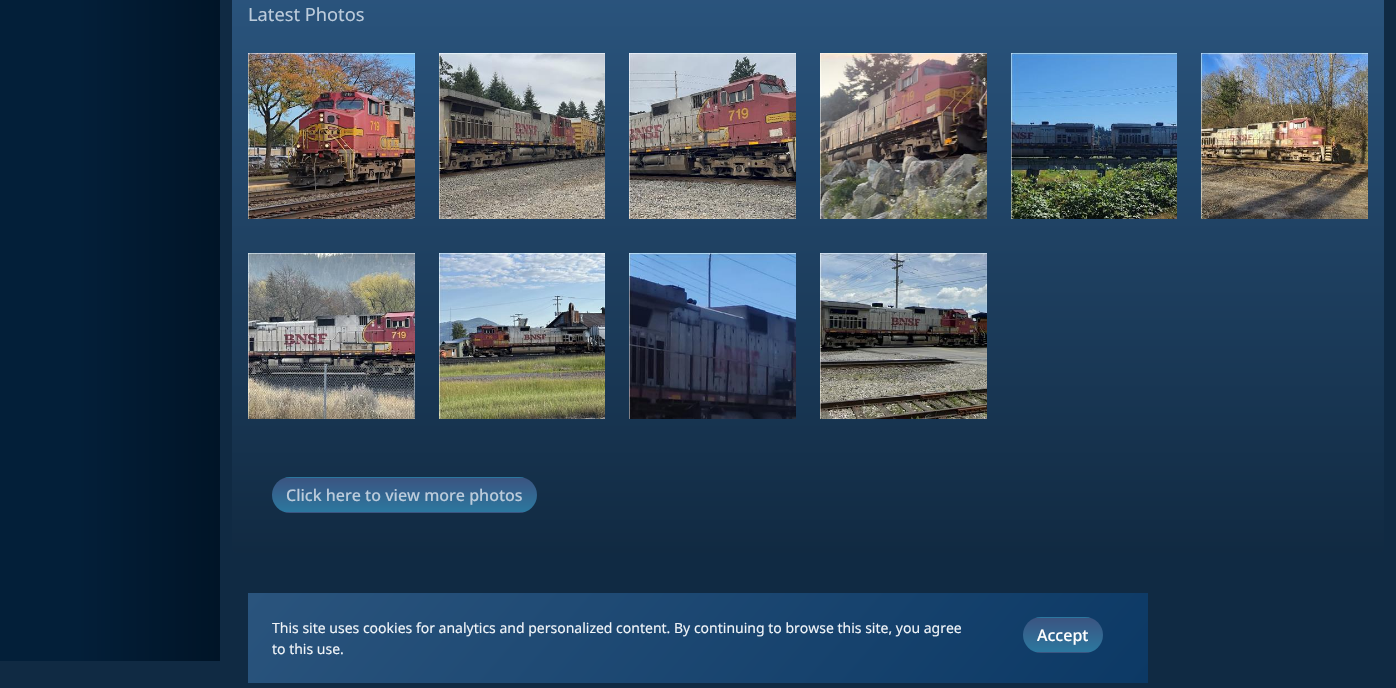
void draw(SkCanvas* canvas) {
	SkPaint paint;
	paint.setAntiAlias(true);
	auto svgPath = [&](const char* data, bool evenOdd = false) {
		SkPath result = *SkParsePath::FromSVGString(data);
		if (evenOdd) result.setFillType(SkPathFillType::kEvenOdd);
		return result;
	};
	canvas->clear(0xff102a43);
	{
		const SkColor colors[] = {0xff031f39, 0xff001427};
		const float stops[] = {0.35, 1};
		const SkPoint ends[] = {{0, -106}, {220, -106}};
		paint.setShader(SkGradientShader::MakeLinear(ends, colors, stops, 2, SkTileMode::kClamp));
		paint.setAlpha(255);
	}
	canvas->drawRect(SkRect::MakeXYWH(0, 0, 220, 661), paint);
	{
		const SkColor colors[] = {0xff2a547d, 0xff112a42};
		const float stops[] = {0, 1};
		const SkPoint ends[] = {{808, -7}, {808, 553}};
		paint.setShader(SkGradientShader::MakeLinear(ends, colors, stops, 2, SkTileMode::kClamp));
		paint.setAlpha(255);
	}
	canvas->drawRoundRect(SkRect::MakeXYWH(232, -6, 1152, 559), 6, 6, paint);
	SkFont f1(fontMgr->matchFamilyStyle("Noto Sans", SkFontStyle::Normal()), 18.25);
	f1.setSubpixel(true);
	paint.setShader(nullptr);
	paint.setColor(0xffbcccdc);
	canvas->drawString("Latest Photos", 248, 21, f1, paint);
	canvas->drawImageRect(SkImages::DeferredFromEncodedData(SkData::MakeFromFileName("img1.png")), SkRect::MakeXYWH(248, 53, 167, 166), SkSamplingOptions());
	canvas->drawImageRect(SkImages::DeferredFromEncodedData(SkData::MakeFromFileName("img2.png")), SkRect::MakeXYWH(439, 53, 166, 166), SkSamplingOptions());
	canvas->drawImageRect(SkImages::DeferredFromEncodedData(SkData::MakeFromFileName("img3.png")), SkRect::MakeXYWH(629, 53, 167, 166), SkSamplingOptions());
	canvas->drawImageRect(SkImages::DeferredFromEncodedData(SkData::MakeFromFileName("img4.png")), SkRect::MakeXYWH(820, 53, 167, 166), SkSamplingOptions());
	canvas->drawImageRect(SkImages::DeferredFromEncodedData(SkData::MakeFromFileName("img5.png")), SkRect::MakeXYWH(1011, 53, 166, 166), SkSamplingOptions());
	canvas->drawImageRect(SkImages::DeferredFromEncodedData(SkData::MakeFromFileName("img6.png")), SkRect::MakeXYWH(1201, 53, 167, 166), SkSamplingOptions());
	canvas->drawImageRect(SkImages::DeferredFromEncodedData(SkData::MakeFromFileName("img7.png")), SkRect::MakeXYWH(248, 253, 167, 166), SkSamplingOptions());
	canvas->drawImageRect(SkImages::DeferredFromEncodedData(SkData::MakeFromFileName("img8.png")), SkRect::MakeXYWH(439, 253, 166, 166), SkSamplingOptions());
	canvas->drawImageRect(SkImages::DeferredFromEncodedData(SkData::MakeFromFileName("img9.png")), SkRect::MakeXYWH(629, 253, 167, 166), SkSamplingOptions());
	canvas->drawImageRect(SkImages::DeferredFromEncodedData(SkData::MakeFromFileName("img10.png")), SkRect::MakeXYWH(820, 253, 167, 166), SkSamplingOptions());
	canvas->save();
	canvas->clipPath(svgPath("M290 477H519C529 477 537 485 537 495C537 505 529 513 519 513H290C280 513 272 505 272 495C272 485 280 477 290 477Z"), true);
	{
		const SkColor colors[] = {0xff2c789f, 0xff3b5481};
		const float stops[] = {0, 1};
		const SkPoint ends[] = {{405, 478}, {405, 444}};
		paint.setShader(SkGradientShader::MakeLinear(ends, colors, stops, 2, SkTileMode::kClamp));
		paint.setAlpha(255);
	}
	canvas->drawRect(SkRect::MakeXYWH(284, 477, 241, 1), paint);
	{
		const SkColor colors[] = {0xff2c789f, 0xff3b5481};
		const float stops[] = {0, 1};
		const SkPoint ends[] = {{405, 512}, {405, 478}};
		paint.setShader(SkGradientShader::MakeLinear(ends, colors, stops, 2, SkTileMode::kClamp));
		paint.setAlpha(255);
	}
	canvas->drawRect(SkRect::MakeXYWH(272, 478, 265, 34), paint);
	{
		const SkColor colors[] = {0xff2c789f, 0xff3b5481};
		const float stops[] = {0, 1};
		const SkPoint ends[] = {{405, 546}, {405, 512}};
		paint.setShader(SkGradientShader::MakeLinear(ends, colors, stops, 2, SkTileMode::kClamp));
		paint.setAlpha(255);
	}
	canvas->drawRect(SkRect::MakeXYWH(284, 512, 241, 1), paint);
	canvas->restore();
	SkFont f2(fontMgr->matchFamilyStyle("Noto Sans", SkFontStyle(500, SkFontStyle::kNormal_Width, SkFontStyle::kUpright_Slant)), 16);
	f2.setSubpixel(true);
	paint.setShader(nullptr);
	paint.setColor(0xffbcccdc);
	canvas->drawString("Click here to view more photos", 286, 501, f2, paint);
	{
		const SkColor colors[] = {0xff2a547d, 0xff0c3965};
		const float stops[] = {0, 1};
		const SkPoint ends[] = {{419, 396}, {977, 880}};
		paint.setShader(SkGradientShader::MakeLinear(ends, colors, stops, 2, SkTileMode::kClamp));
		paint.setAlpha(255);
	}
	canvas->drawRect(SkRect::MakeXYWH(248, 593, 900, 90), paint);
	SkFont f3(fontMgr->matchFamilyStyle("Noto Sans", SkFontStyle::Normal()), 14);
	f3.setSubpixel(true);
	paint.setShader(nullptr);
	paint.setColor(0xfff0f4f8);
	canvas->drawString("This site uses cookies for analytics and personalized content. By continuing to browse this site, you agree", 272, 633, f3, paint);
	canvas->drawString("to this use.", 272, 654, f3, paint);
	canvas->save();
	canvas->clipPath(svgPath("M1041 617H1085C1095 617 1103 625 1103 635C1103 645 1095 653 1085 653H1041C1031 653 1023 645 1023 635C1023 625 1031 617 1041 617Z"), true);
	{
		const SkColor colors[] = {0xff2c789f, 0xff3b5481};
		const float stops[] = {0, 1};
		const SkPoint ends[] = {{1063, 618}, {1063, 584}};
		paint.setShader(SkGradientShader::MakeLinear(ends, colors, stops, 2, SkTileMode::kClamp));
		paint.setAlpha(255);
	}
	canvas->drawRect(SkRect::MakeXYWH(1035, 617, 56, 1), paint);
	{
		const SkColor colors[] = {0xff2c789f, 0xff3b5481};
		const float stops[] = {0, 1};
		const SkPoint ends[] = {{1063, 652}, {1063, 618}};
		paint.setShader(SkGradientShader::MakeLinear(ends, colors, stops, 2, SkTileMode::kClamp));
		paint.setAlpha(255);
	}
	canvas->drawRect(SkRect::MakeXYWH(1023, 618, 80, 34), paint);
	{
		const SkColor colors[] = {0xff2c789f, 0xff3b5481};
		const float stops[] = {0, 1};
		const SkPoint ends[] = {{1063, 686}, {1063, 652}};
		paint.setShader(SkGradientShader::MakeLinear(ends, colors, stops, 2, SkTileMode::kClamp));
		paint.setAlpha(255);
	}
	canvas->drawRect(SkRect::MakeXYWH(1035, 652, 56, 1), paint);
	canvas->restore();
	paint.setShader(nullptr);
	paint.setColor(0xffffffff);
	canvas->drawString("Accept", 1037, 641, f2, paint);
}
